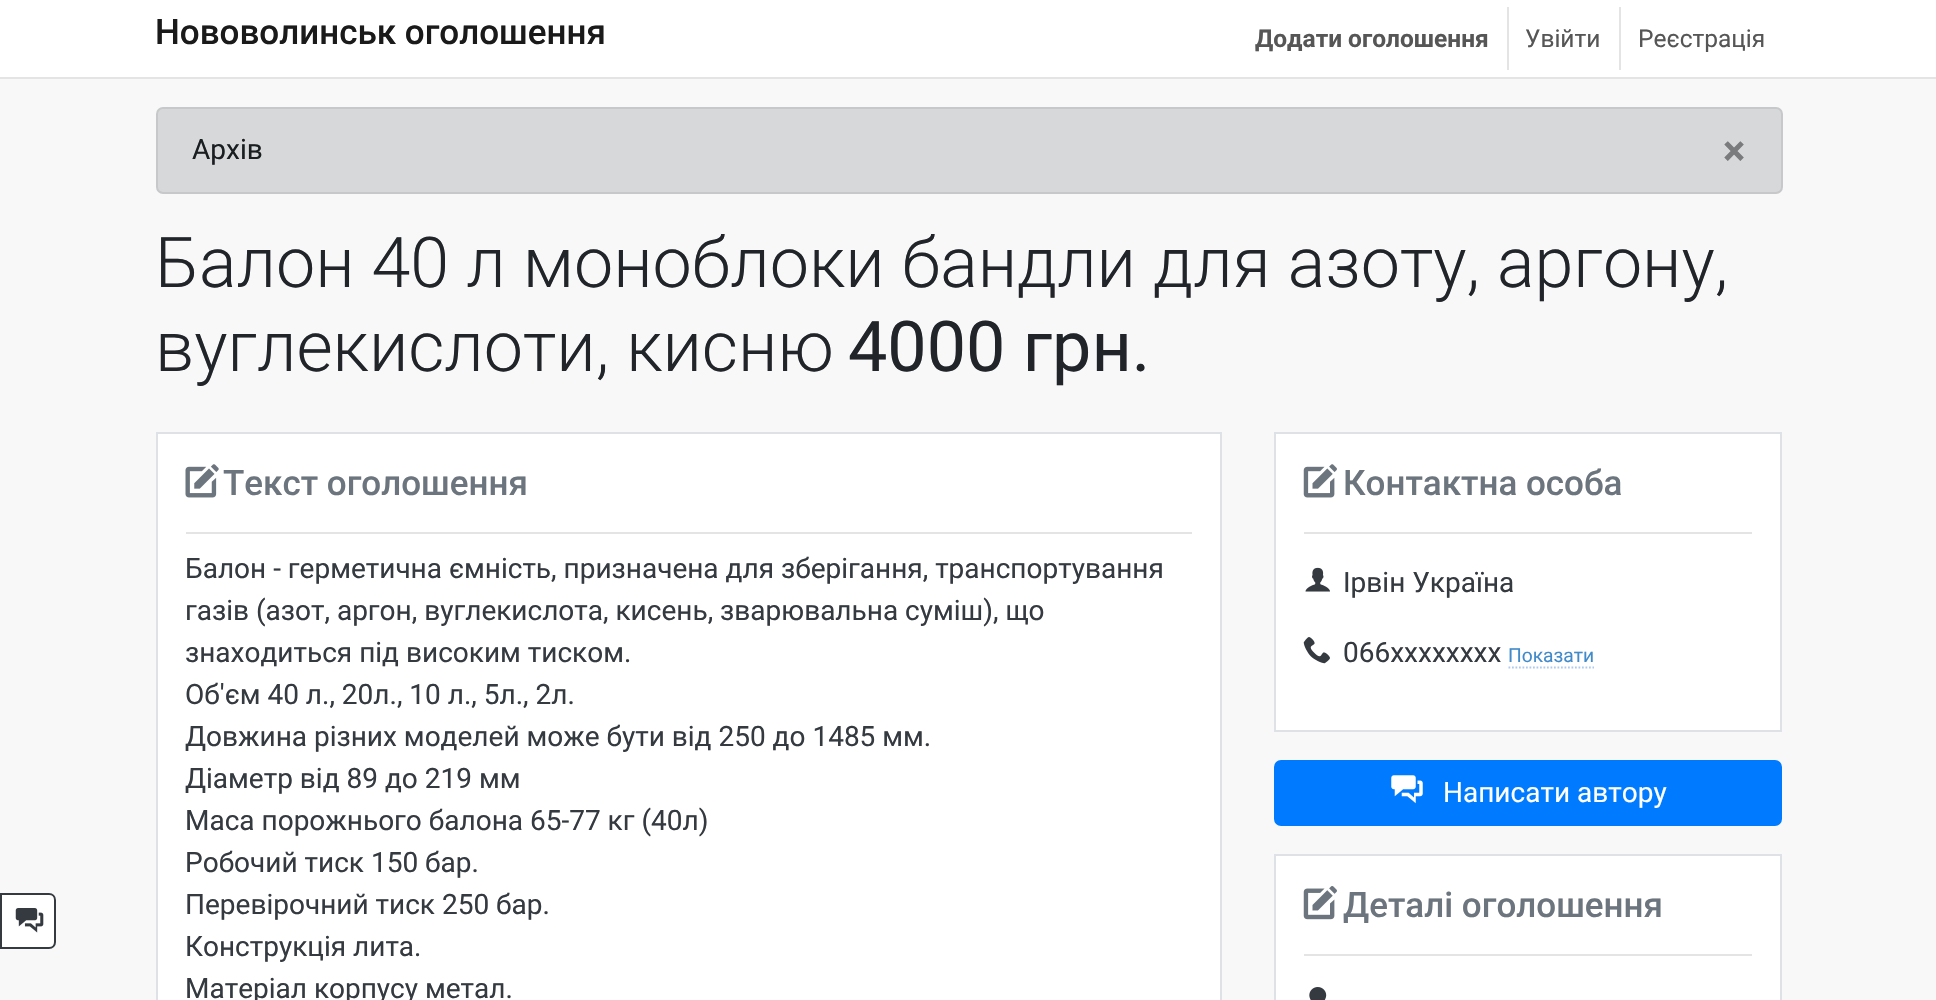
void draw(SkCanvas* canvas) {
	SkPaint paint;
	paint.setAntiAlias(true);
	auto svgPath = [&](const char* data, bool evenOdd = false) {
		SkPath result = *SkParsePath::FromSVGString(data);
		if (evenOdd) result.setFillType(SkPathFillType::kEvenOdd);
		return result;
	};
	canvas->clear(0xfff8f8f8);
	paint.setColor(0xffffffff);
	canvas->drawPath(svgPath("M1 894H49C52.5 894 55 896.5 55 900V942C55 945.5 52.5 948 49 948H1Z"), paint);
	paint.setStroke(true);
	paint.setStrokeWidth(2);
	paint.setColor(0xff343a40);
	canvas->drawPath(svgPath("M1 894H49C52.5 894 55 896.5 55 900V942C55 945.5 52.5 948 49 948H1Z"), paint);
	canvas->drawImageRect(SkImages::DeferredFromEncodedData(SkData::MakeFromFileName("img1.png")), SkRect::MakeXYWH(15, 908, 29, 25), SkSamplingOptions());
	paint.setStroke(false);
	paint.setColor(0xffffffff);
	canvas->drawRect(SkRect::MakeXYWH(0, 0, 1936, 77), paint);
	paint.setColor(0xffe4e4e4);
	canvas->drawRect(SkRect::MakeXYWH(0, 77, 1936, 2), paint);
	SkFont f1(fontMgr->matchFamilyStyle("Roboto", SkFontStyle(500, SkFontStyle::kNormal_Width, SkFontStyle::kUpright_Slant)), 35);
	f1.setSubpixel(true);
	paint.setColor(0xff1a1a1a);
	canvas->drawString("Нововолинськ оголошення", 155, 44, f1, paint);
	SkFont f2(fontMgr->matchFamilyStyle("Roboto", SkFontStyle::Bold()), 24.5);
	f2.setSubpixel(true);
	paint.setColor(0xff565656);
	canvas->drawString("Додати оголошення", 1255, 47, f2, paint);
	paint.setColor(0xffe4e4e4);
	canvas->drawRect(SkRect::MakeXYWH(1507, 7, 2, 63), paint);
	SkFont f3(fontMgr->matchFamilyStyle("Roboto", SkFontStyle::Normal()), 24.5);
	f3.setSubpixel(true);
	paint.setColor(0xff565656);
	canvas->drawString("Увійти", 1525, 47, f3, paint);
	paint.setColor(0xffe4e4e4);
	canvas->drawRect(SkRect::MakeXYWH(1619, 7, 2, 63), paint);
	paint.setColor(0xff565656);
	canvas->drawString("Реєстрація", 1638, 47, f3, paint);
	paint.setColor(0xffd6d8d9);
	canvas->drawRoundRect(SkRect::MakeXYWH(157, 108, 1625, 85), 6, 6, paint);
	paint.setStroke(true);
	paint.setColor(0xffc6c8ca);
	canvas->drawRoundRect(SkRect::MakeXYWH(157, 108, 1625, 85), 6, 6, paint);
	SkFont f4(fontMgr->matchFamilyStyle("Roboto", SkFontStyle::Normal()), 28);
	f4.setSubpixel(true);
	paint.setStroke(false);
	paint.setColor(0xff1b1e21);
	canvas->drawString("Архів", 192, 159, f4, paint);
	SkFont f5(fontMgr->matchFamilyStyle("Roboto", SkFontStyle::Bold()), 42);
	f5.setSubpixel(true);
	paint.setColor(0xff797b7d);
	canvas->drawString("×", 1723, 165, f5, paint);
	SkFont f6(fontMgr->matchFamilyStyle("Roboto", SkFontStyle(300, SkFontStyle::kNormal_Width, SkFontStyle::kUpright_Slant)), 70);
	f6.setSubpixel(true);
	paint.setColor(0xff212529);
	canvas->drawString("Балон 40 л моноблоки бандли для азоту, аргону,", 155, 287, f6, paint);
	canvas->drawString("вуглекислоти, кисню", 155, 371, f6, paint);
	SkFont f7(fontMgr->matchFamilyStyle("Roboto", SkFontStyle::Normal()), 70);
	f7.setSubpixel(true);
	canvas->drawString("4000 грн.", 848, 371, f7, paint);
	paint.setColor(0xffffffff);
	canvas->drawRect(SkRect::MakeXYWH(157, 433, 1064, 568), paint);
	paint.setStroke(true);
	paint.setColor(0xffdee2e6);
	canvas->drawRect(SkRect::MakeXYWH(157, 433, 1064, 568), paint);
	paint.setStroke(false);
	paint.setColor(0xffe4e4e4);
	canvas->drawRect(SkRect::MakeXYWH(186, 532, 1006, 2), paint);
	canvas->drawImageRect(SkImages::DeferredFromEncodedData(SkData::MakeFromFileName("img2.png")), SkRect::MakeXYWH(185, 464, 34, 34), SkSamplingOptions());
	paint.setColor(0xff6c757d);
	canvas->drawString("Текст оголошення", 223, 495, f1, paint);
	paint.setColor(0xff343a40);
	canvas->drawString("Балон - герметична ємність, призначена для зберігання, транспортування", 185, 578, f4, paint);
	canvas->drawString("газів (азот, аргон, вуглекислота, кисень, зварювальна суміш), що", 185, 620, f4, paint);
	canvas->drawString("знаходиться під високим тиском.", 185, 662, f4, paint);
	canvas->drawString("Об'єм 40 л., 20л., 10 л., 5л., 2л.", 185, 704, f4, paint);
	canvas->drawString("Довжина різних моделей може бути від 250 до 1485 мм.", 185, 746, f4, paint);
	canvas->drawString("Діаметр від 89 до 219 мм", 185, 788, f4, paint);
	canvas->drawString("Маса порожнього балона 65-77 кг (40л)", 185, 830, f4, paint);
	canvas->drawString("Робочий тиск 150 бар.", 185, 872, f4, paint);
	canvas->drawString("Перевірочний тиск 250 бар.", 185, 914, f4, paint);
	canvas->drawString("Конструкція лита.", 185, 956, f4, paint);
	canvas->drawString("Матеріал корпусу метал.", 185, 998, f4, paint);
	paint.setColor(0xffffffff);
	canvas->drawRect(SkRect::MakeXYWH(1275, 433, 506, 298), paint);
	paint.setStroke(true);
	paint.setColor(0xffdee2e6);
	canvas->drawRect(SkRect::MakeXYWH(1275, 433, 506, 298), paint);
	paint.setStroke(false);
	paint.setColor(0xffe4e4e4);
	canvas->drawRect(SkRect::MakeXYWH(1304, 532, 448, 2), paint);
	canvas->drawImageRect(SkImages::DeferredFromEncodedData(SkData::MakeFromFileName("img3.png")), SkRect::MakeXYWH(1303, 464, 34, 34), SkSamplingOptions());
	paint.setColor(0xff6c757d);
	canvas->drawString("Контактна особа", 1343, 495, f1, paint);
	canvas->drawImageRect(SkImages::DeferredFromEncodedData(SkData::MakeFromFileName("img4.png")), SkRect::MakeXYWH(1305, 567, 25, 25), SkSamplingOptions());
	paint.setColor(0xff343a40);
	canvas->drawString("Ірвін Україна", 1343, 592, f4, paint);
	canvas->drawImageRect(SkImages::DeferredFromEncodedData(SkData::MakeFromFileName("img5.png")), SkRect::MakeXYWH(1303, 637, 27, 27), SkSamplingOptions());
	canvas->drawString("066xxxxxxxx", 1343, 662, f4, paint);
	SkFont f8(fontMgr->matchFamilyStyle("Roboto", SkFontStyle::Normal()), 19.25);
	f8.setSubpixel(true);
	paint.setColor(0xff428bca);
	canvas->drawString("Показати", 1508, 662, f8, paint);
	paint.setStroke(true);
	paint.setStrokeWidth(1.8);
	paint.setColor(0xffaccaee);
	paint.setPathEffect(SkDashPathEffect::Make({{1.75f, 1.75f}}, 0));
	canvas->drawPath(svgPath("M1508.5 667.5H1594"), paint);
	paint.setPathEffect(nullptr);
	paint.setStroke(false);
	paint.setColor(0xff007bff);
	canvas->drawRoundRect(SkRect::MakeXYWH(1275, 761, 506, 64), 6, 6, paint);
	paint.setStroke(true);
	paint.setStrokeWidth(2);
	canvas->drawRoundRect(SkRect::MakeXYWH(1275, 761, 506, 64), 6, 6, paint);
	canvas->drawImageRect(SkImages::DeferredFromEncodedData(SkData::MakeFromFileName("img6.png")), SkRect::MakeXYWH(1391, 775, 32, 29), SkSamplingOptions());
	paint.setStroke(false);
	paint.setColor(0xffffffff);
	canvas->drawString("Написати автору", 1443, 802, f4, paint);
	canvas->drawRect(SkRect::MakeXYWH(1275, 855, 506, 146), paint);
	paint.setStroke(true);
	paint.setColor(0xffdee2e6);
	canvas->drawRect(SkRect::MakeXYWH(1275, 855, 506, 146), paint);
	paint.setStroke(false);
	paint.setColor(0xffe4e4e4);
	canvas->drawRect(SkRect::MakeXYWH(1304, 954, 448, 2), paint);
	canvas->drawImageRect(SkImages::DeferredFromEncodedData(SkData::MakeFromFileName("img7.png")), SkRect::MakeXYWH(1303, 886, 34, 34), SkSamplingOptions());
	paint.setColor(0xff6c757d);
	canvas->drawString("Деталі оголошення", 1343, 917, f1, paint);
	canvas->drawImageRect(SkImages::DeferredFromEncodedData(SkData::MakeFromFileName("img8.png")), SkRect::MakeXYWH(1309, 987, 18, 13), SkSamplingOptions());
}
